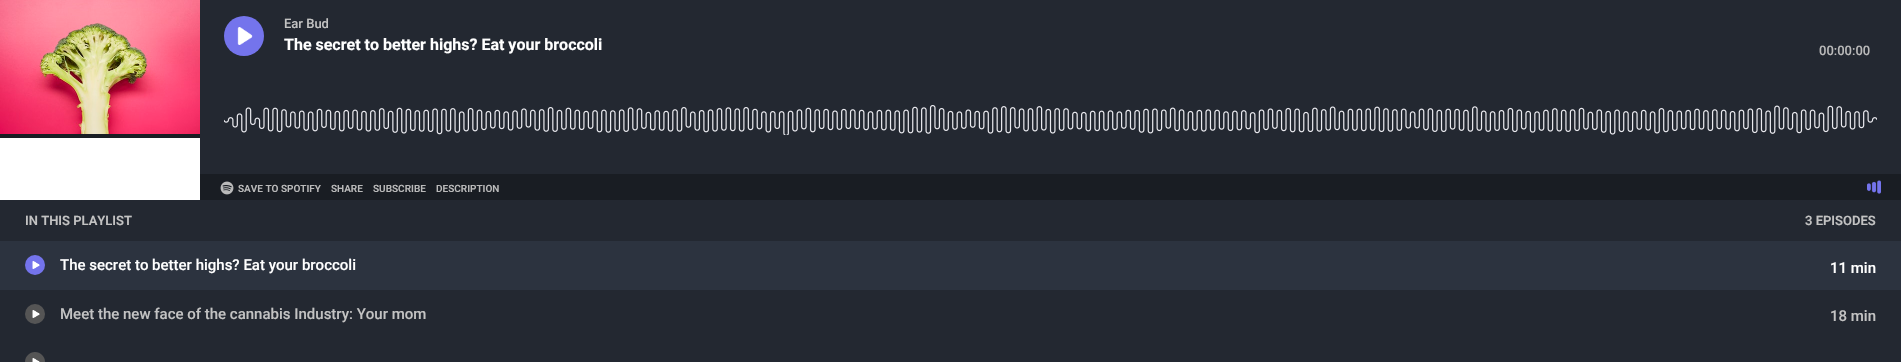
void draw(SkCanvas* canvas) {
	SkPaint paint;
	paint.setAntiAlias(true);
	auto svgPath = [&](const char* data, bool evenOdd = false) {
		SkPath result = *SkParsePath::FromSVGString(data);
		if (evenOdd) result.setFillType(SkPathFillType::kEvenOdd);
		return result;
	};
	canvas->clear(0xffffffff);
	paint.setColor(0xff191d23);
	canvas->drawRect(SkRect::MakeXYWH(0, 134, 200, 4), paint);
	canvas->drawImageRect(SkImages::DeferredFromEncodedData(SkData::MakeFromFileName("img1.png")), SkRect::MakeXYWH(0, 0, 200, 134), SkSamplingOptions());
	paint.setColor(0xff232831);
	canvas->drawRect(SkRect::MakeXYWH(200, 0, 1701, 174), paint);
	paint.setColor(0xff7474ec);
	canvas->drawCircle(244, 36, 20, paint);
	canvas->drawImageRect(SkImages::DeferredFromEncodedData(SkData::MakeFromFileName("img2.png")), SkRect::MakeXYWH(237, 27, 16, 18), SkSamplingOptions());
	SkFont f1(fontMgr->matchFamilyStyle("Roboto", SkFontStyle(500, SkFontStyle::kNormal_Width, SkFontStyle::kUpright_Slant)), 13);
	f1.setSubpixel(true);
	paint.setColor(0xffc3c3c3);
	canvas->drawString("Ear Bud", 284, 28, f1, paint);
	SkFont f2(fontMgr->matchFamilyStyle("Roboto", SkFontStyle::Bold()), 16);
	f2.setSubpixel(true);
	paint.setColor(0xffffffff);
	canvas->drawString("The secret to better highs? Eat your broccoli", 284, 50, f2, paint);
	paint.setColor(0xffbababa);
	canvas->drawString("00:00:00", 1819, 55, f1, paint);
	canvas->drawImageRect(SkImages::DeferredFromEncodedData(SkData::MakeFromFileName("img3.png")), SkRect::MakeXYWH(224, 105, 1653, 30), SkSamplingOptions());
	paint.setColor(0xff191d23);
	canvas->drawRect(SkRect::MakeXYWH(200, 174, 1701, 26), paint);
	canvas->drawImageRect(SkImages::DeferredFromEncodedData(SkData::MakeFromFileName("img4.png")), SkRect::MakeXYWH(220, 181, 14, 14), SkSamplingOptions());
	SkFont f3(fontMgr->matchFamilyStyle("Roboto", SkFontStyle(600, SkFontStyle::kNormal_Width, SkFontStyle::kUpright_Slant)), 10);
	f3.setSubpixel(true);
	paint.setColor(0xffbababa);
	canvas->drawString("SAVE TO SPOTIFY", 238, 192, f3, paint);
	canvas->drawString("SHARE", 331, 192, f3, paint);
	canvas->drawString("SUBSCRIBE", 373, 192, f3, paint);
	canvas->drawString("DESCRIPTION", 436, 192, f3, paint);
	canvas->drawImageRect(SkImages::DeferredFromEncodedData(SkData::MakeFromFileName("img5.png")), SkRect::MakeXYWH(1867, 180, 14, 14), SkSamplingOptions());
	paint.setColor(0xff232831);
	canvas->drawRect(SkRect::MakeXYWH(0, 200, 1901, 162), paint);
	SkFont f4(fontMgr->matchFamilyStyle("Roboto", SkFontStyle(600, SkFontStyle::kNormal_Width, SkFontStyle::kUpright_Slant)), 13);
	f4.setSubpixel(true);
	paint.setColor(0xffc3c3c3);
	canvas->drawString("IN THIS PLAYLIST", 25, 225, f4, paint);
	canvas->drawString("3 EPISODES", 1805, 225, f4, paint);
	paint.setColor(0xff2c333f);
	canvas->drawRect(SkRect::MakeXYWH(0, 241, 1901, 49), paint);
	paint.setColor(0xff7474ec);
	canvas->drawCircle(35, 265, 10, paint);
	canvas->drawImageRect(SkImages::DeferredFromEncodedData(SkData::MakeFromFileName("img6.png")), SkRect::MakeXYWH(32, 261, 8, 8), SkSamplingOptions());
	SkFont f5(fontMgr->matchFamilyStyle("Roboto", SkFontStyle(500, SkFontStyle::kNormal_Width, SkFontStyle::kUpright_Slant)), 15);
	f5.setSubpixel(true);
	paint.setColor(0xffffffff);
	canvas->drawString("The secret to better highs? Eat your broccoli", 60, 270, f5, paint);
	canvas->drawString("11 min", 1830, 273, f5, paint);
	paint.setColor(0xff555555);
	canvas->drawCircle(35, 314, 10, paint);
	canvas->drawImageRect(SkImages::DeferredFromEncodedData(SkData::MakeFromFileName("img7.png")), SkRect::MakeXYWH(32, 310, 8, 8), SkSamplingOptions());
	paint.setColor(0xffc3c3c3);
	canvas->drawString("Meet the new face of the cannabis Industry: Your mom", 60, 319, f5, paint);
	canvas->drawString("18 min", 1830, 321, f5, paint);
	paint.setColor(0xff555555);
	canvas->drawPath(svgPath("M35 352C40.5 352 45 356.5 45 362H25C25 356.5 29.5 352 35 352Z"), paint);
	canvas->drawImageRect(SkImages::DeferredFromEncodedData(SkData::MakeFromFileName("img8.png")), SkRect::MakeXYWH(32, 358, 8, 4), SkSamplingOptions());
}
